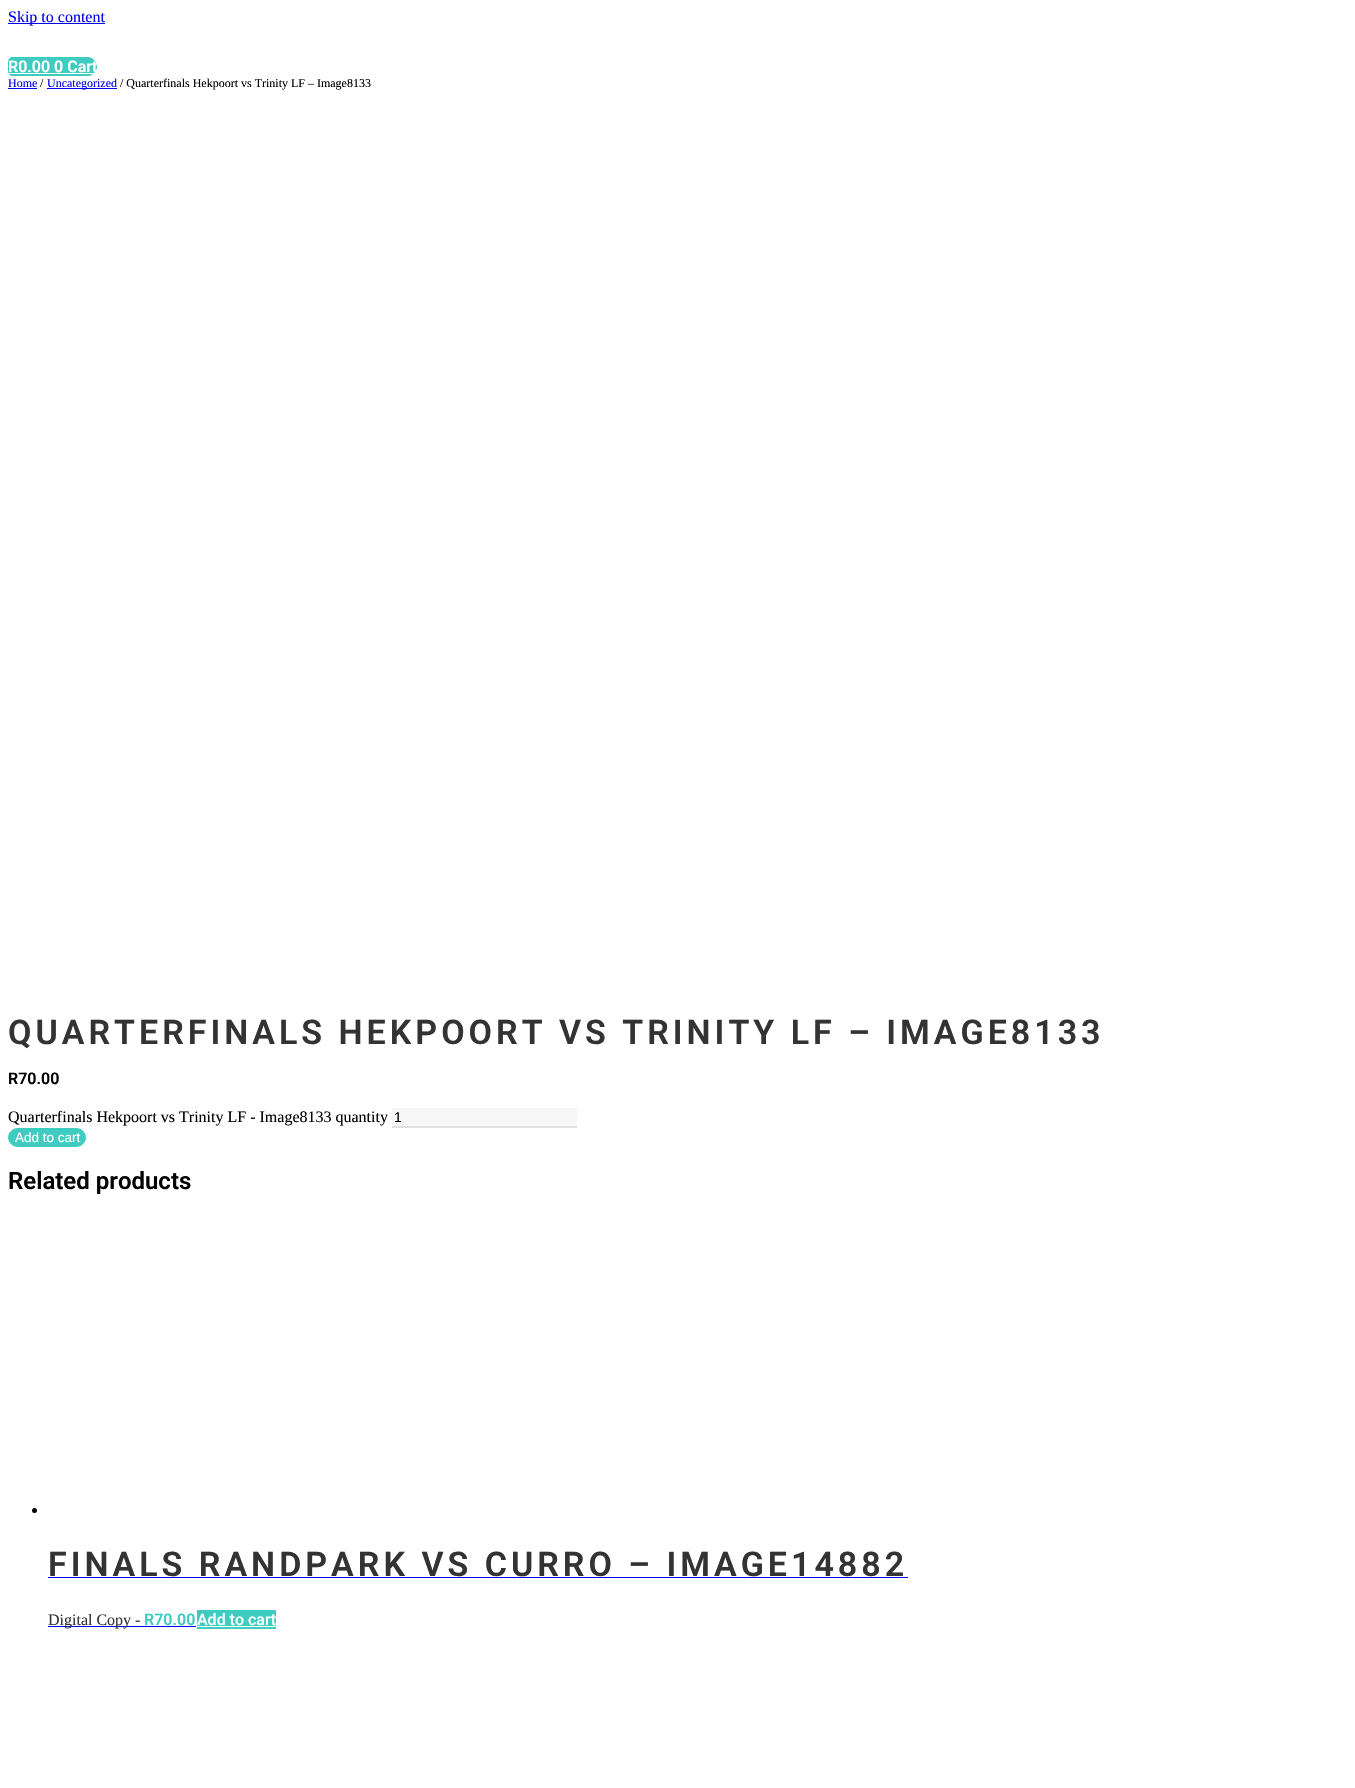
void draw(SkCanvas* canvas) {
	SkPaint paint;
	paint.setAntiAlias(true);
	auto spacedText = [&](const char* s, float x, float y, const SkFont& font, const SkPaint& ink, float letter, float word) {
		std::vector<SkGlyphID> glyphs(font.countText(s, strlen(s), SkTextEncoding::kUTF8));
		std::vector<float> xs(glyphs.size());
		font.textToGlyphs(s, strlen(s), SkTextEncoding::kUTF8, glyphs);
		font.getXPos(glyphs, xs, x);
		float extra = 0;
		for (size_t i = 0; i < glyphs.size(); i++) {
			xs[i] += extra;
			extra += letter + word * (glyphs[i] == font.unicharToGlyph(' '));
		}
		canvas->drawTextBlob(SkTextBlob::MakeFromPosHGlyphs(glyphs, xs, y, font), 0, 0, ink);
	};
	auto svgPath = [&](const char* data, bool evenOdd = false) {
		SkPath result = *SkParsePath::FromSVGString(data);
		if (evenOdd) result.setFillType(SkPathFillType::kEvenOdd);
		return result;
	};
	canvas->clear(0xffffffff);
	paint.setColor(0xff0000ee);
	canvas->drawRect(SkRect::MakeXYWH(8, 23, 97, 1), paint);
	SkFont f1(fontMgr->matchFamilyStyle("Liberation Serif", SkFontStyle::Normal()), 16);
	f1.setSubpixel(true);
	canvas->drawString("Skip to content", 8, 22, f1, paint);
	paint.setColor(0xff3fccc0);
	canvas->drawPath(svgPath("M13 57H18V76H13C10 76 8 74 8 71V62C8 59 10 57 13 57Z"), paint);
	canvas->drawRect(SkRect::MakeXYWH(18, 57, 49, 19), paint);
	canvas->drawPath(svgPath("M67 57H87.5C92.5 57 97 61.5 97 66.5C97 71.5 92.5 76 87.5 76H67Z"), paint);
	SkFont f2(fontMgr->matchFamilyStyle("Roboto", SkFontStyle(600, SkFontStyle::kNormal_Width, SkFontStyle::kUpright_Slant)), 16);
	f2.setSubpixel(true);
	paint.setColor(0xffffffff);
	canvas->drawString("R0.00 0 Cart", 8, 72, f2, paint);
	canvas->drawRect(SkRect::MakeXYWH(8, 73, 89, 1), paint);
	SkFont f3(fontMgr->matchFamilyStyle("Liberation Serif", SkFontStyle::Normal()), 12);
	f3.setSubpixel(true);
	paint.setColor(0xff0000ee);
	canvas->drawString("Home", 8, 87, f3, paint);
	canvas->drawRect(SkRect::MakeXYWH(8, 88, 29, 1), paint);
	paint.setColor(0xff000000);
	canvas->drawString("/", 40, 87, f3, paint);
	paint.setColor(0xff0000ee);
	canvas->drawRect(SkRect::MakeXYWH(47, 88, 70, 1), paint);
	canvas->drawString("Uncategorized", 47, 87, f3, paint);
	paint.setColor(0xff000000);
	canvas->drawString("/ Quarterfinals Hekpoort vs Trinity LF – Image8133", 120, 87, f3, paint);
	SkFont f4(fontMgr->matchFamilyStyle("Roboto", SkFontStyle(600, SkFontStyle::kNormal_Width, SkFontStyle::kUpright_Slant)), 34);
	f4.setSubpixel(true);
	paint.setColor(0xff333333);
	spacedText("QUARTERFINALS HEKPOORT VS TRINITY LF – IMAGE8133", 8, 1044, f4, paint, 4, 0);
	paint.setColor(0xff000000);
	canvas->drawString("R70.00", 8, 1084, f2, paint);
	canvas->drawString("Quarterfinals Hekpoort vs Trinity LF - Image8133 quantity", 8, 1122, f1, paint);
	paint.setColor(0xfff6f6f6);
	canvas->drawRect(SkRect::MakeXYWH(392, 1108, 185, 18), paint);
	paint.setColor(0xffe0e0e0);
	canvas->drawRect(SkRect::MakeXYWH(392, 1126, 185, 2), paint);
	SkFont f5(fontMgr->matchFamilyStyle("Liberation Sans", SkFontStyle::Normal()), 14);
	f5.setSubpixel(true);
	paint.setColor(0xff000000);
	canvas->drawString("1", 394, 1122, f5, paint);
	paint.setColor(0xff3fccc0);
	canvas->drawRoundRect(SkRect::MakeXYWH(8.5, 1128.5, 77, 18), 9, 9, paint);
	paint.setStroke(true);
	paint.setStrokeWidth(1);
	canvas->drawRoundRect(SkRect::MakeXYWH(8.5, 1128.5, 77, 18), 9, 9, paint);
	SkFont f6(fontMgr->matchFamilyStyle("Liberation Sans", SkFontStyle::Normal()), 13.5);
	f6.setSubpixel(true);
	paint.setStroke(false);
	paint.setColor(0xffffffff);
	canvas->drawString("Add to cart", 15, 1142, f6, paint);
	SkFont f7(fontMgr->matchFamilyStyle("Roboto", SkFontStyle(600, SkFontStyle::kNormal_Width, SkFontStyle::kUpright_Slant)), 24);
	f7.setSubpixel(true);
	paint.setColor(0xff000000);
	canvas->drawString("Related products", 8, 1189, f7, paint);
	canvas->drawCircle(34.5, 1510.5, 2.5, paint);
	paint.setColor(0xff333333);
	spacedText("FINALS RANDPARK VS CURRO – IMAGE14882", 48, 1576, f4, paint, 4, 0);
	paint.setColor(0xff0000ee);
	canvas->drawRect(SkRect::MakeXYWH(48, 1577, 860, 1), paint);
	canvas->drawRect(SkRect::MakeXYWH(48, 1626, 148, 1), paint);
	paint.setColor(0xff333333);
	canvas->drawString("Digital Copy -", 48, 1625, f1, paint);
	paint.setColor(0xff3fccc0);
	canvas->drawString("R70.00", 144, 1625, f2, paint);
	canvas->drawRect(SkRect::MakeXYWH(197, 1610, 79, 19), paint);
	SkFont f8(fontMgr->matchFamilyStyle("Roboto", SkFontStyle(500, SkFontStyle::kNormal_Width, SkFontStyle::kUpright_Slant)), 16);
	f8.setSubpixel(true);
	paint.setColor(0xffffffff);
	canvas->drawString("Add to cart", 197, 1625, f8, paint);
	canvas->drawRect(SkRect::MakeXYWH(197, 1626, 79, 1), paint);
}
